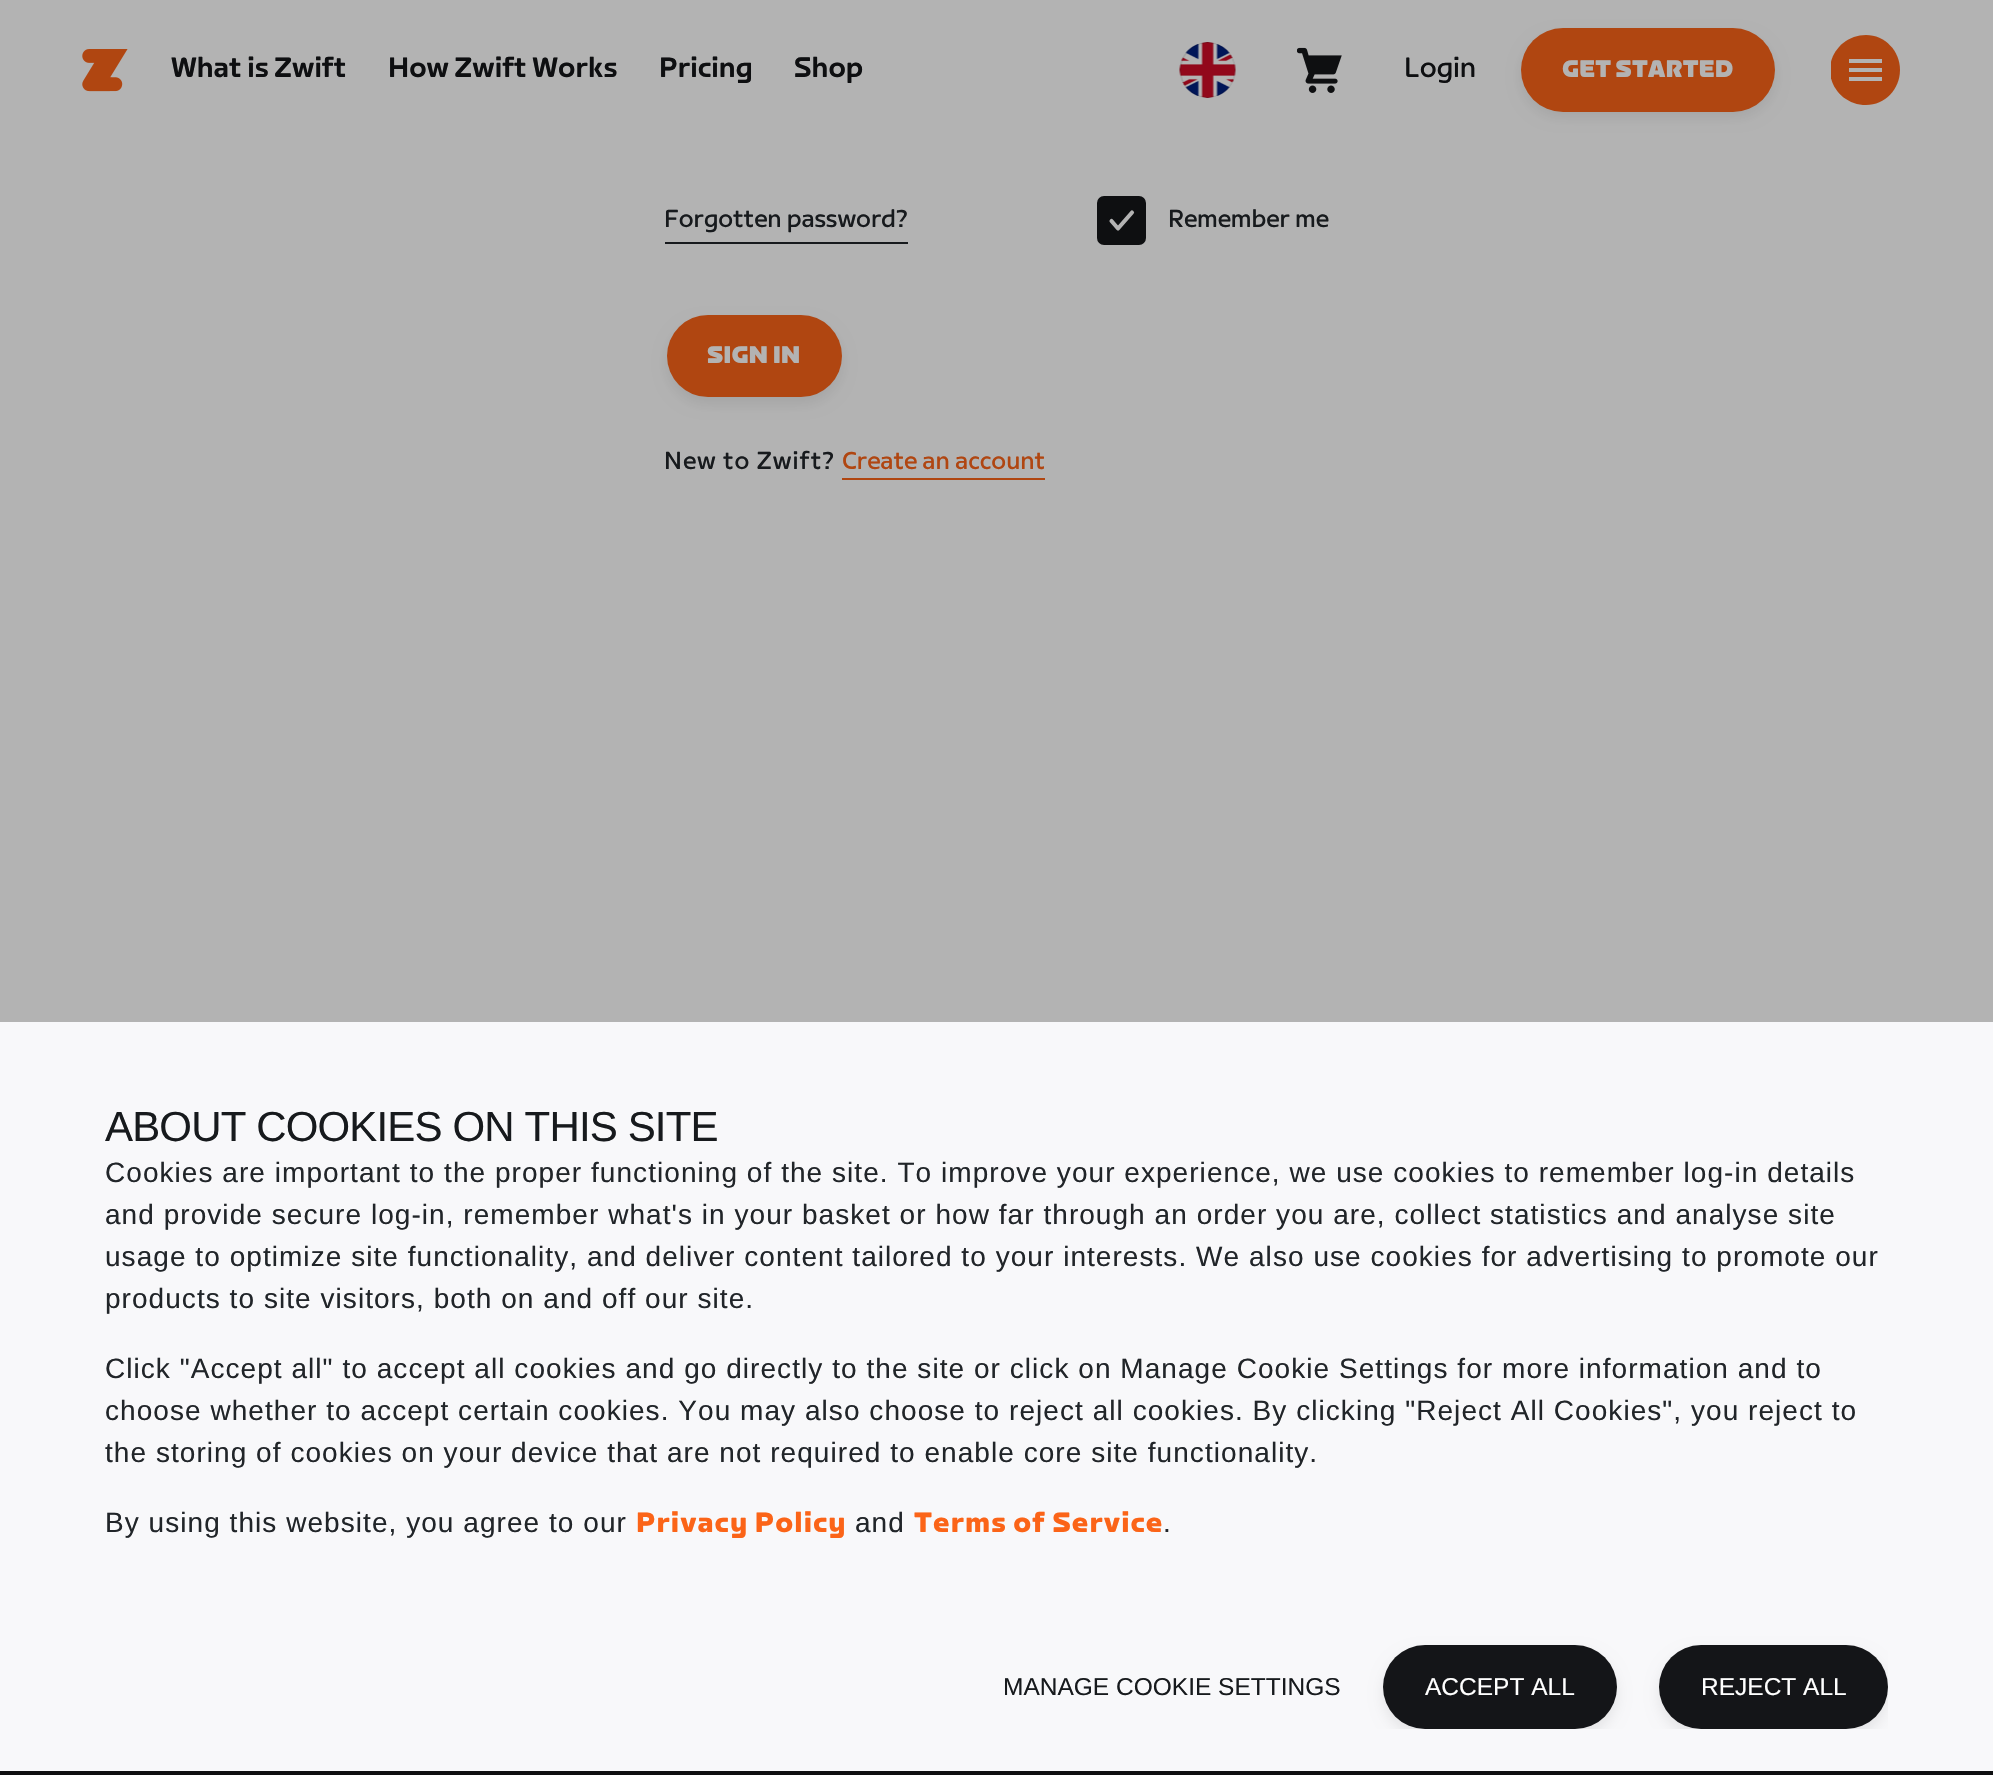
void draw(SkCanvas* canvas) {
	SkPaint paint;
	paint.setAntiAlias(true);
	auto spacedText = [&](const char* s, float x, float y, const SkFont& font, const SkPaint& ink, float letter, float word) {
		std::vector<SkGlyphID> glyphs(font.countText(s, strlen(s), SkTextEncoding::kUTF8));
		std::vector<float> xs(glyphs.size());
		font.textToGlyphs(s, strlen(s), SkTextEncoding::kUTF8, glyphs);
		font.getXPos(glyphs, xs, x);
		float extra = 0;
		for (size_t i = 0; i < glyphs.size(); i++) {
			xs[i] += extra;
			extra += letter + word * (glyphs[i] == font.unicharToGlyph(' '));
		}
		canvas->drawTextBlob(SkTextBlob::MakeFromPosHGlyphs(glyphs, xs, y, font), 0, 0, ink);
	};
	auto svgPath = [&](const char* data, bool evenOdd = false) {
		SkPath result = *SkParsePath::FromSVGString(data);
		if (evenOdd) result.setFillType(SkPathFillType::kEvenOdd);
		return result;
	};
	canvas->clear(0xffb3b3b3);
	canvas->drawImageRect(SkImages::DeferredFromEncodedData(SkData::MakeFromFileName("img1.png")), SkRect::MakeXYWH(82, 49, 46, 43), SkSamplingOptions());
	SkFont f1(fontMgr->matchFamilyStyle("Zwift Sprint", SkFontStyle(500, SkFontStyle::kNormal_Width, SkFontStyle::kUpright_Slant)), 28);
	f1.setSubpixel(true);
	paint.setColor(0xff0e0f11);
	canvas->drawString("What is Zwift", 171, 77, f1, paint);
	canvas->drawString("How Zwift Works", 388, 77, f1, paint);
	canvas->drawString("Pricing", 659, 77, f1, paint);
	canvas->drawString("Shop", 794, 77, f1, paint);
	canvas->drawImageRect(SkImages::DeferredFromEncodedData(SkData::MakeFromFileName("img2.png")), SkRect::MakeXYWH(1179, 42, 57, 56), SkSamplingOptions());
	canvas->drawImageRect(SkImages::DeferredFromEncodedData(SkData::MakeFromFileName("img3.png")), SkRect::MakeXYWH(1297, 47, 45, 46), SkSamplingOptions());
	SkFont f2(fontMgr->matchFamilyStyle("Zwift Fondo", SkFontStyle::Normal()), 28);
	f2.setSubpixel(true);
	canvas->drawString("Login", 1404, 77, f2, paint);
	paint.setColor(0x14000000);
	paint.setMaskFilter(SkMaskFilter::MakeBlur(kNormal_SkBlurStyle, 7));
	canvas->drawRoundRect(SkRect::MakeXYWH(1521, 35, 254, 82), 41, 41, paint);
	paint.setMaskFilter(nullptr);
	paint.setColor(0xffb04611);
	canvas->drawRoundRect(SkRect::MakeXYWH(1521, 28, 254, 84), 42, 42, paint);
	SkFont f3(fontMgr->matchFamilyStyle("Zwift Sprint", SkFontStyle(900, SkFontStyle::kNormal_Width, SkFontStyle::kUpright_Slant)), 24);
	f3.setSubpixel(true);
	paint.setColor(0xffb3b3b3);
	canvas->drawString("GET STARTED", 1562, 77, f3, paint);
	canvas->save();
	canvas->clipRect(SkRect::MakeXYWH(1831, 35, 70, 70));
	paint.setColor(0xffb04611);
	canvas->drawPath(svgPath("M1830 70C1830 51 1846 35 1866 35C1885 35 1900 51 1900 70C1900 89 1885 105 1866 105C1846 105 1830 89 1830 70Z"), paint);
	canvas->restore();
	paint.setColor(0xffb3b3b3);
	canvas->drawRect(SkRect::MakeXYWH(1849, 59, 33, 4), paint);
	canvas->drawRect(SkRect::MakeXYWH(1849, 68, 33, 4), paint);
	canvas->drawRect(SkRect::MakeXYWH(1849, 77, 33, 4), paint);
	SkFont f4(fontMgr->matchFamilyStyle("Zwift Fondo", SkFontStyle::Normal()), 24.5);
	f4.setSubpixel(true);
	paint.setColor(0xff171a1d);
	canvas->drawString("Forgotten password?", 664, 227, f4, paint);
	canvas->drawRect(SkRect::MakeXYWH(665, 242, 243, 2), paint);
	paint.setColor(0xff0e0f11);
	canvas->drawRoundRect(SkRect::MakeXYWH(1099, 198, 45, 45), 5, 5, paint);
	paint.setStroke(true);
	paint.setStrokeWidth(4);
	canvas->drawRoundRect(SkRect::MakeXYWH(1099, 198, 45, 45), 5, 5, paint);
	paint.setStrokeWidth(4.1);
	paint.setStrokeCap(SkPaint::kRound_Cap);
	paint.setStrokeJoin(SkPaint::kRound_Join);
	paint.setColor(0xffb3b3b3);
	canvas->drawPath(svgPath("M1111.5 221L1118 228.5L1132 212.5"), paint);
	paint.setStroke(false);
	paint.setColor(0xff171a1d);
	canvas->drawString("Remember me", 1168, 227, f4, paint);
	paint.setColor(0x14000000);
	paint.setMaskFilter(SkMaskFilter::MakeBlur(kNormal_SkBlurStyle, 7));
	canvas->drawRoundRect(SkRect::MakeXYWH(667, 322, 175, 82), 41, 41, paint);
	paint.setMaskFilter(nullptr);
	paint.setColor(0xffb04611);
	canvas->drawRoundRect(SkRect::MakeXYWH(667, 315, 175, 82), 41, 41, paint);
	paint.setColor(0xffb3b3b3);
	canvas->drawString("SIGN IN", 707, 363, f3, paint);
	paint.setColor(0xff171a1d);
	spacedText("New to Zwift?", 664, 469, f4, paint, 1.05, 0);
	paint.setColor(0xffb04611);
	canvas->drawString("Create an account", 842, 469, f4, paint);
	canvas->drawRect(SkRect::MakeXYWH(842, 478, 203, 2), paint);
	paint.setColor(0xfff8f8fa);
	canvas->drawRect(SkRect::MakeXYWH(0, 1022, 1993, 749), paint);
	SkFont f5(fontMgr->matchFamilyStyle("Liberation Sans", SkFontStyle::Normal()), 42);
	f5.setSubpixel(true);
	paint.setColor(0xff171a1d);
	spacedText("ABOUT COOKIES ON THIS SITE", 105, 1141, f5, paint, -0.85, 0);
	SkFont f6(fontMgr->matchFamilyStyle("Liberation Sans", SkFontStyle::Normal()), 28);
	f6.setSubpixel(true);
	paint.setColor(0xff212529);
	spacedText("Cookies are important to the proper functioning of the site. To improve your experience, we use cookies to remember log-in details", 105, 1182, f6, paint, 1.05, 0);
	spacedText("and provide secure log-in, remember what's in your basket or how far through an order you are, collect statistics and analyse site", 105, 1224, f6, paint, 1.05, 0);
	spacedText("usage to optimize site functionality, and deliver content tailored to your interests. We also use cookies for advertising to promote our", 105, 1266, f6, paint, 1.05, 0);
	spacedText("products to site visitors, both on and off our site.", 105, 1308, f6, paint, 1.05, 0);
	spacedText("Click \"Accept all\" to accept all cookies and go directly to the site or click on Manage Cookie Settings for more information and to", 105, 1378, f6, paint, 1.05, 0);
	spacedText("choose whether to accept certain cookies. You may also choose to reject all cookies. By clicking \"Reject All Cookies\", you reject to", 105, 1420, f6, paint, 1.05, 0);
	spacedText("the storing of cookies on your device that are not required to enable core site functionality.", 105, 1462, f6, paint, 1.05, 0);
	spacedText("By using this website, you agree to our", 105, 1532, f6, paint, 1.05, 0);
	SkFont f7(fontMgr->matchFamilyStyle("Zwift Sprint", SkFontStyle::Bold()), 28);
	f7.setSubpixel(true);
	paint.setColor(0xfffb6418);
	spacedText("Privacy Policy", 636, 1532, f7, paint, 1.05, 0);
	paint.setColor(0xff212529);
	spacedText("and", 855, 1532, f6, paint, 1.05, 0);
	paint.setColor(0xfffb6418);
	spacedText("Terms of Service", 914, 1532, f7, paint, 1.05, 0);
	paint.setColor(0xff212529);
	spacedText(".", 1163, 1532, f6, paint, 1.05, 0);
	SkFont f8(fontMgr->matchFamilyStyle("Liberation Sans", SkFontStyle::Normal()), 24.5);
	f8.setSubpixel(true);
	paint.setColor(0xff171a1d);
	canvas->drawString("MANAGE COOKIE SETTINGS", 1003, 1695, f8, paint);
	canvas->save();
	canvas->clipRect(SkRect::MakeXYWH(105, 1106, 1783, 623));
	paint.setColor(0x14000000);
	paint.setMaskFilter(SkMaskFilter::MakeBlur(kNormal_SkBlurStyle, 7));
	canvas->drawRoundRect(SkRect::MakeXYWH(1383, 1652, 234, 84), 42, 42, paint);
	paint.setMaskFilter(nullptr);
	canvas->restore();
	paint.setColor(0xff141518);
	canvas->drawRoundRect(SkRect::MakeXYWH(1383, 1645, 234, 84), 42, 42, paint);
	paint.setColor(0xffffffff);
	canvas->drawString("ACCEPT ALL", 1425, 1695, f8, paint);
	canvas->save();
	canvas->clipRect(SkRect::MakeXYWH(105, 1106, 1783, 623));
	paint.setColor(0x14000000);
	paint.setMaskFilter(SkMaskFilter::MakeBlur(kNormal_SkBlurStyle, 7));
	canvas->drawRoundRect(SkRect::MakeXYWH(1659, 1652, 229, 84), 42, 42, paint);
	paint.setMaskFilter(nullptr);
	canvas->restore();
	paint.setColor(0xff141518);
	canvas->drawRoundRect(SkRect::MakeXYWH(1659, 1645, 229, 84), 42, 42, paint);
	paint.setColor(0xffffffff);
	canvas->drawString("REJECT ALL", 1701, 1695, f8, paint);
	paint.setColor(0xff0e0f11);
	canvas->drawRect(SkRect::MakeXYWH(0, 1771, 1993, 4), paint);
}
